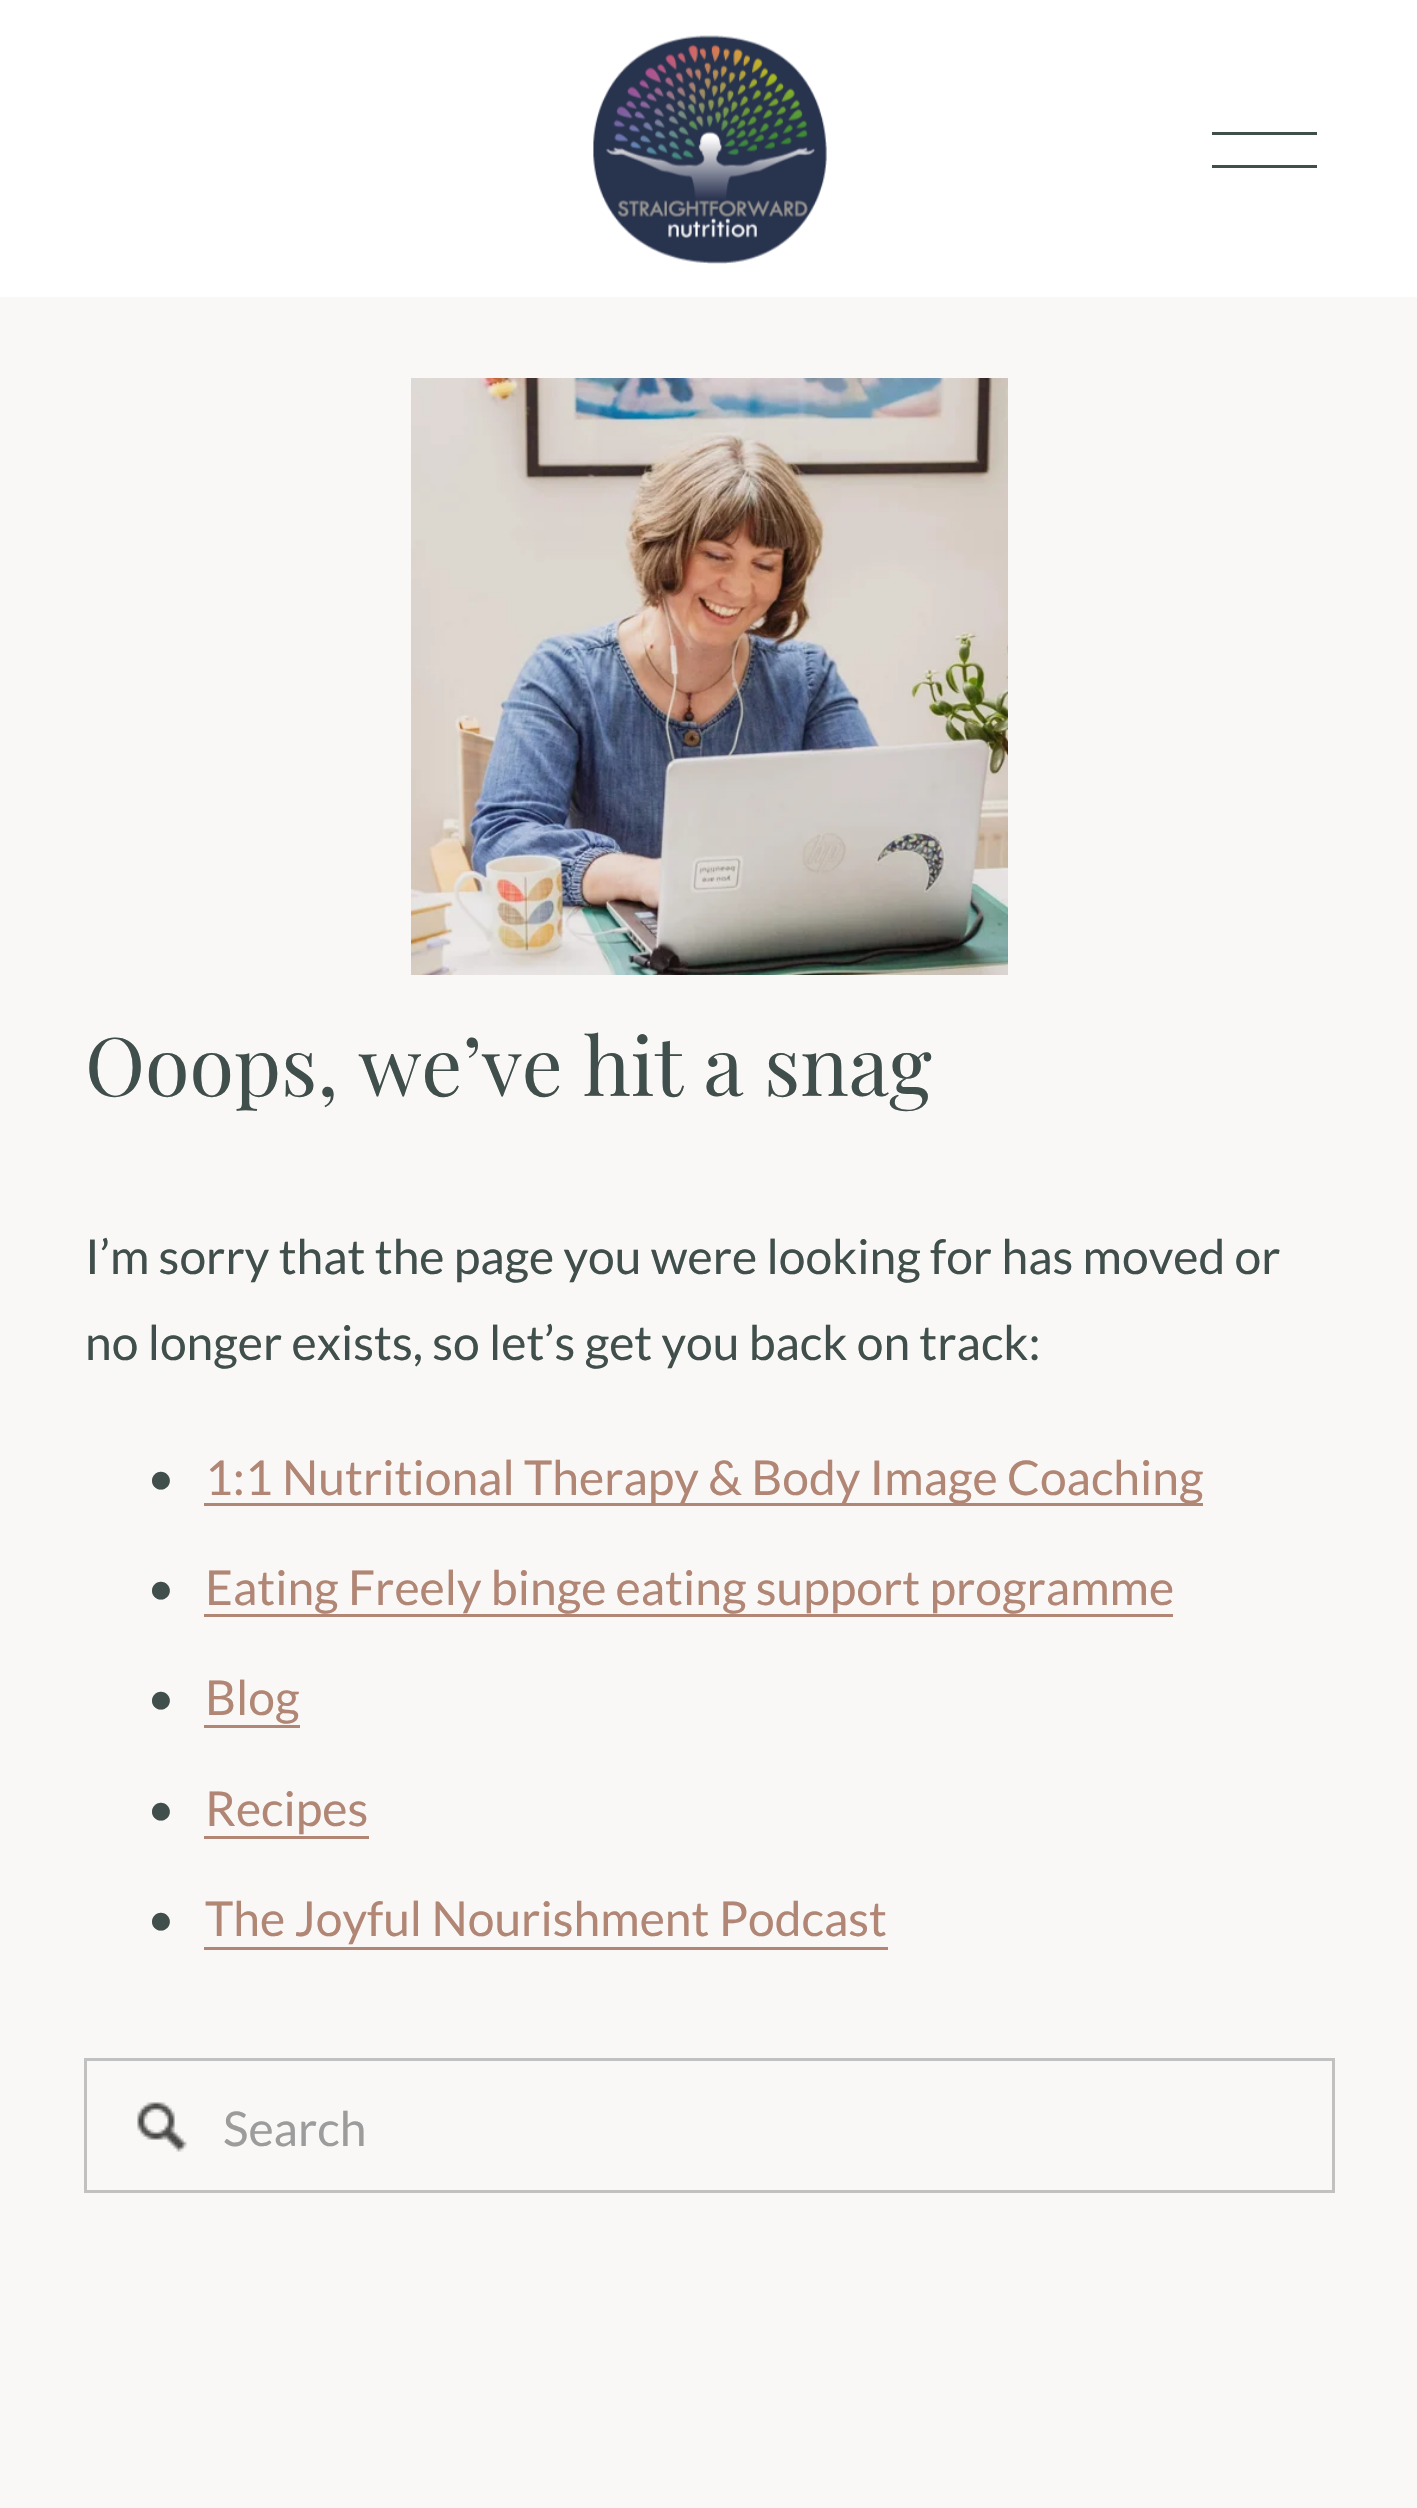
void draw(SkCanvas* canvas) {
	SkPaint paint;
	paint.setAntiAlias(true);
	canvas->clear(0xfff9f8f6);
	paint.setColor(0xffffffff);
	canvas->drawRect(SkRect::MakeXYWH(0, 0, 1417, 297), paint);
	canvas->drawImageRect(SkImages::DeferredFromEncodedData(SkData::MakeFromFileName("img1.png")), SkRect::MakeXYWH(593, 35, 234, 229), SkSamplingOptions());
	paint.setColor(0xff404f4b);
	canvas->drawRect(SkRect::MakeXYWH(1212, 132, 105, 3), paint);
	canvas->drawRect(SkRect::MakeXYWH(1212, 165, 105, 3), paint);
	canvas->drawImageRect(SkImages::DeferredFromEncodedData(SkData::MakeFromFileName("img2.png")), SkRect::MakeXYWH(411, 378, 597, 597), SkSamplingOptions());
	SkFont f1(fontMgr->matchFamilyStyle("Playfair Display", SkFontStyle::Normal()), 81.1);
	f1.setSubpixel(true);
	canvas->drawString("Ooops, we’ve hit a snag", 85, 1096, f1, paint);
	SkFont f2(fontMgr->matchFamilyStyle("Lato", SkFontStyle::Normal()), 48);
	f2.setSubpixel(true);
	canvas->drawString("I’m sorry that the page you were looking for has moved or", 85, 1274, f2, paint);
	canvas->drawString("no longer exists, so let’s get you back on track:", 85, 1360, f2, paint);
	canvas->drawString("•", 147, 1495, f2, paint);
	paint.setColor(0xffb18675);
	canvas->drawRect(SkRect::MakeXYWH(204, 1503, 999, 3), paint);
	canvas->drawString("1:1 Nutritional Therapy & Body Image Coaching", 205, 1495, f2, paint);
	paint.setColor(0xff404f4b);
	canvas->drawString("•", 147, 1605, f2, paint);
	paint.setColor(0xffb18675);
	canvas->drawString("Eating Freely binge eating support programme", 205, 1605, f2, paint);
	canvas->drawRect(SkRect::MakeXYWH(204, 1614, 969, 3), paint);
	paint.setColor(0xff404f4b);
	canvas->drawString("•", 147, 1715, f2, paint);
	paint.setColor(0xffb18675);
	canvas->drawString("Blog", 205, 1715, f2, paint);
	canvas->drawRect(SkRect::MakeXYWH(204, 1725, 96, 3), paint);
	paint.setColor(0xff404f4b);
	canvas->drawString("•", 147, 1826, f2, paint);
	paint.setColor(0xffb18675);
	canvas->drawString("Recipes", 205, 1826, f2, paint);
	canvas->drawRect(SkRect::MakeXYWH(204, 1836, 165, 3), paint);
	paint.setColor(0xff404f4b);
	canvas->drawString("•", 147, 1936, f2, paint);
	paint.setColor(0xffb18675);
	canvas->drawString("The Joyful Nourishment Podcast", 205, 1936, f2, paint);
	canvas->drawRect(SkRect::MakeXYWH(204, 1947, 684, 3), paint);
	canvas->drawImageRect(SkImages::DeferredFromEncodedData(SkData::MakeFromFileName("img3.png")), SkRect::MakeXYWH(137, 2102, 50, 50), SkSamplingOptions());
	paint.setStroke(true);
	paint.setStrokeWidth(3);
	paint.setColor(0xffc2c1c1);
	canvas->drawRect(SkRect::MakeXYWH(85.5, 2059.5, 1248, 132), paint);
	paint.setStroke(false);
	paint.setColor(0xff9d9c9c);
	canvas->drawString("Search", 223, 2146, f2, paint);
}
